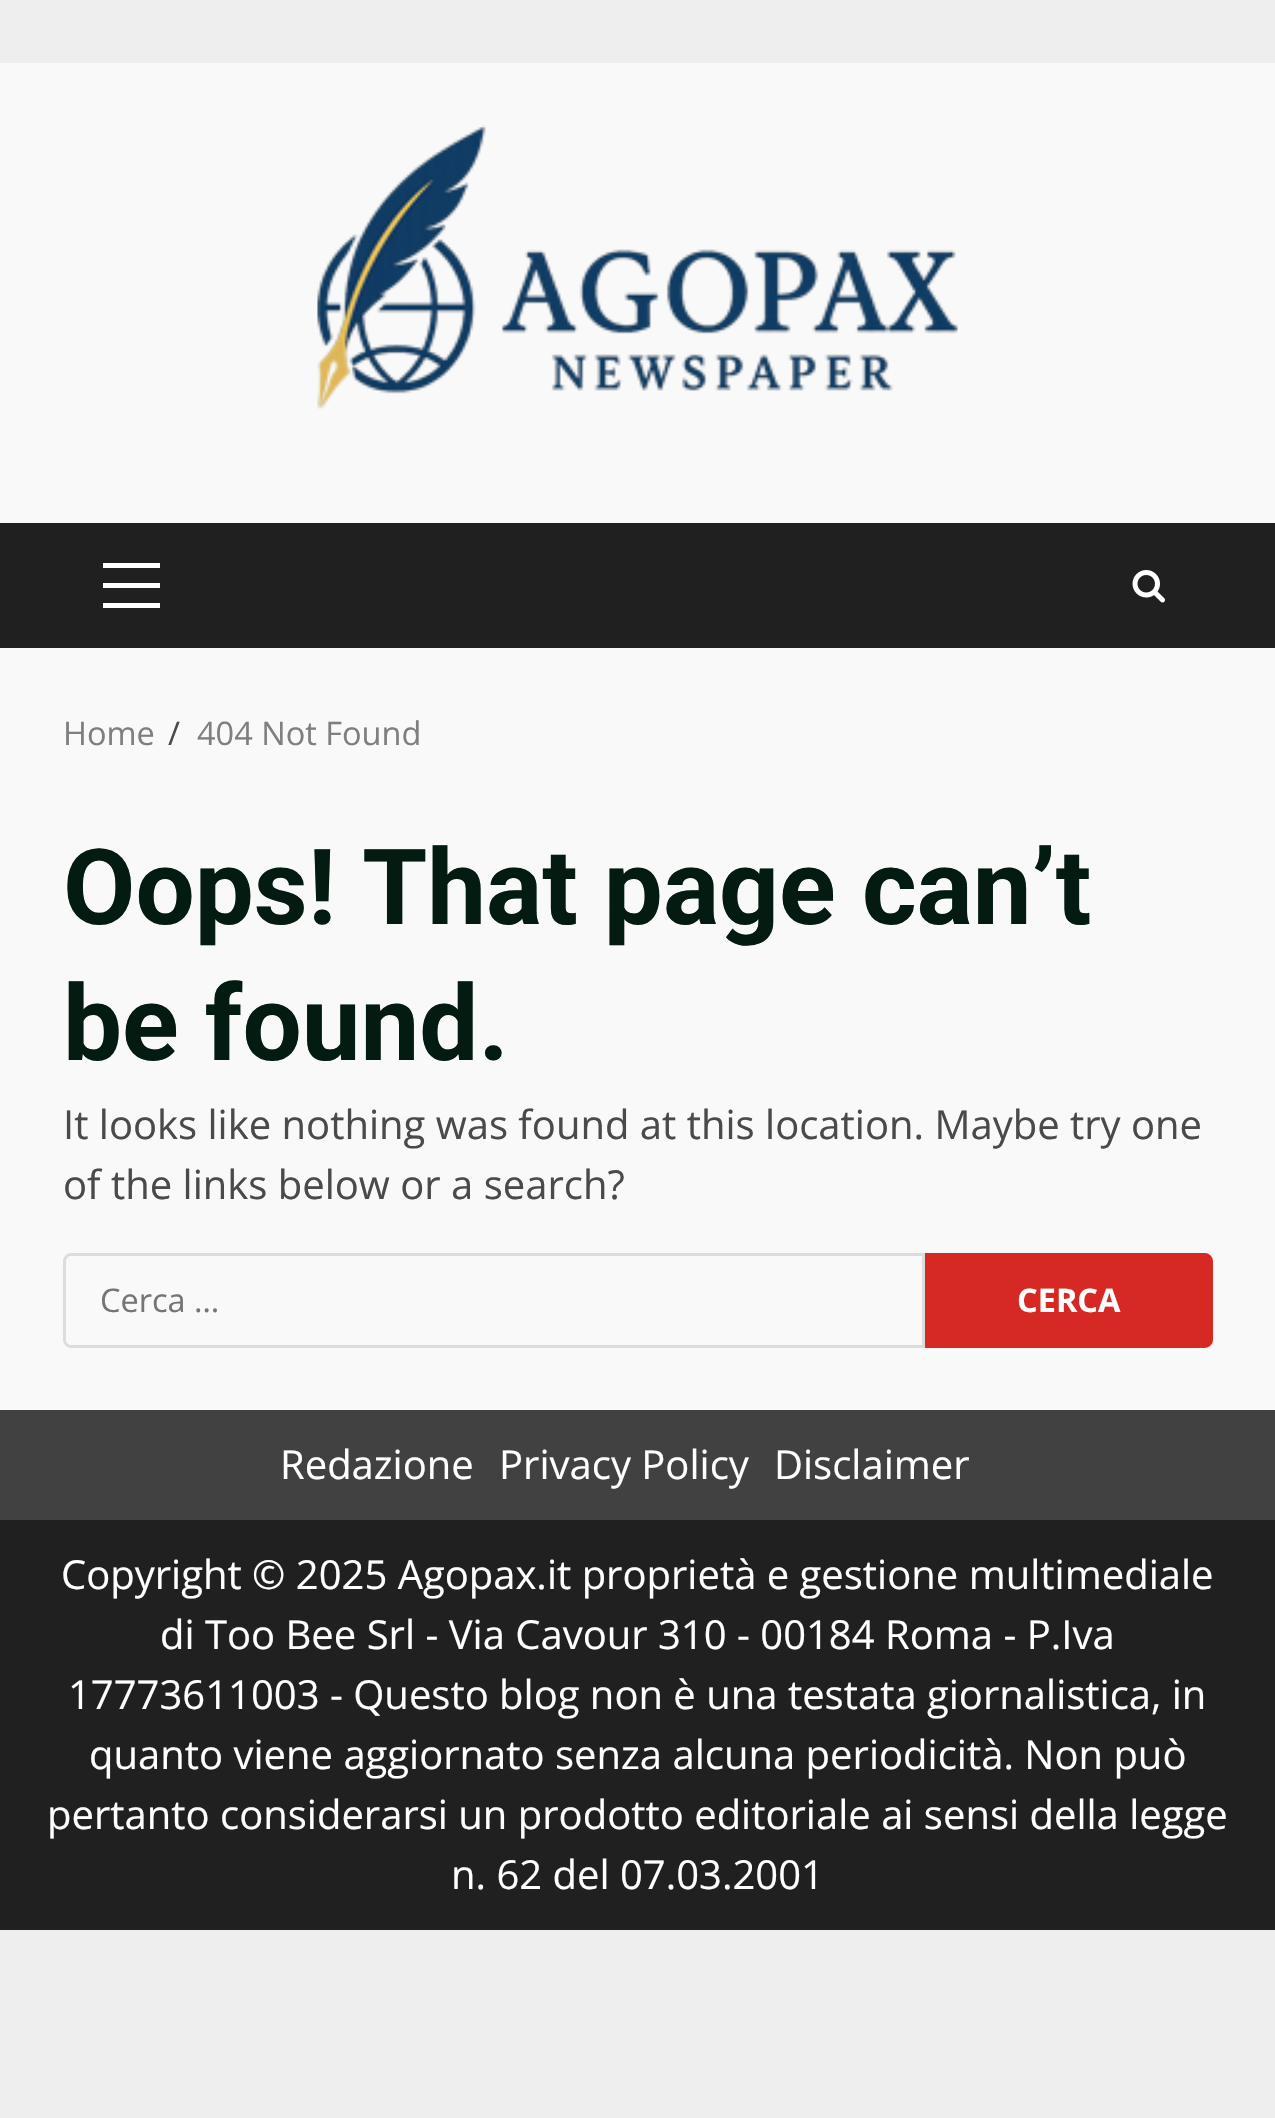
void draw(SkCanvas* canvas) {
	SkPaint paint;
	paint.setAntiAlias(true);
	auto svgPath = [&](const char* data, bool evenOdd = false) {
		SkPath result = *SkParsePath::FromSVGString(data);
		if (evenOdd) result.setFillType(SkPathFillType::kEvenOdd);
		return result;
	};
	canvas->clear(0xffeeeeee);
	paint.setColor(0xfff9f9f9);
	canvas->drawRect(SkRect::MakeXYWH(0, 63, 1275, 1347), paint);
	canvas->drawImageRect(SkImages::DeferredFromEncodedData(SkData::MakeFromFileName("img1.png")), SkRect::MakeXYWH(317, 125, 641, 285), SkSamplingOptions());
	paint.setColor(0xff202020);
	canvas->drawRect(SkRect::MakeXYWH(0, 523, 1275, 125), paint);
	paint.setColor(0xffffffff);
	canvas->drawRect(SkRect::MakeXYWH(103, 583, 57, 5), paint);
	canvas->drawRect(SkRect::MakeXYWH(103, 563, 57, 5), paint);
	canvas->drawRect(SkRect::MakeXYWH(103, 603, 57, 5), paint);
	canvas->drawImageRect(SkImages::DeferredFromEncodedData(SkData::MakeFromFileName("img2.png")), SkRect::MakeXYWH(1132, 570, 33, 33), SkSamplingOptions());
	SkFont f1(fontMgr->matchFamilyStyle("Open Sans", SkFontStyle::Normal()), 32.5);
	f1.setSubpixel(true);
	paint.setColor(0xff7f7f7f);
	canvas->drawString("Home", 63, 745, f1, paint);
	paint.setColor(0xff4a4a4a);
	canvas->drawString("/", 168, 745, f1, paint);
	paint.setColor(0xff7f7f7f);
	canvas->drawString("404 Not Found", 197, 745, f1, paint);
	SkFont f2(fontMgr->matchFamilyStyle("Roboto", SkFontStyle::Bold()), 105);
	f2.setSubpixel(true);
	paint.setColor(0xff031b11);
	canvas->drawString("Oops! That page can’t", 63, 924, f2, paint);
	canvas->drawString("be found.", 63, 1060, f2, paint);
	SkFont f3(fontMgr->matchFamilyStyle("Open Sans", SkFontStyle::Normal()), 40);
	f3.setSubpixel(true);
	paint.setColor(0xff4a4a4a);
	canvas->drawString("It looks like nothing was found at this location. Maybe try one", 63, 1139, f3, paint);
	canvas->drawString("of the links below or a search?", 63, 1199, f3, paint);
	paint.setStroke(true);
	paint.setStrokeWidth(3);
	paint.setColor(0xffdcdcdc);
	canvas->drawPath(svgPath("M71 1254.5H923.5V1346.5H71C67.5 1346.5 64.5 1343.5 64.5 1340V1261C64.5 1257.5 67.5 1254.5 71 1254.5Z"), paint);
	paint.setStroke(false);
	paint.setColor(0xff757575);
	canvas->drawString("Cerca …", 100, 1312, f1, paint);
	paint.setColor(0xffd72924);
	canvas->drawPath(svgPath("M926.5 1254.5H1205C1208.5 1254.5 1211.5 1257.5 1211.5 1261V1340C1211.5 1343.5 1208.5 1346.5 1205 1346.5H926.5Z"), paint);
	paint.setStroke(true);
	canvas->drawPath(svgPath("M926.5 1254.5H1205C1208.5 1254.5 1211.5 1257.5 1211.5 1261V1340C1211.5 1343.5 1208.5 1346.5 1205 1346.5H926.5Z"), paint);
	SkFont f4(fontMgr->matchFamilyStyle("Open Sans", SkFontStyle::Bold()), 32.5);
	f4.setSubpixel(true);
	paint.setStroke(false);
	paint.setColor(0xffffffff);
	canvas->drawString("CERCA", 1017, 1312, f4, paint);
	paint.setColor(0xff202020);
	canvas->drawRect(SkRect::MakeXYWH(0, 1520, 1275, 410), paint);
	paint.setColor(0xff414141);
	canvas->drawRect(SkRect::MakeXYWH(0, 1410, 1275, 110), paint);
	paint.setColor(0xffffffff);
	canvas->drawString("Redazione", 280, 1479, f3, paint);
	canvas->drawString("Privacy Policy", 499, 1479, f3, paint);
	canvas->drawString("Disclaimer", 774, 1479, f3, paint);
	canvas->drawString("Copyright © 2025 Agopax.it proprietà e gestione multimediale", 61, 1589, f3, paint);
	canvas->drawString("di Too Bee Srl - Via Cavour 310 - 00184 Roma - P.Iva", 160, 1649, f3, paint);
	canvas->drawString("17773611003 - Questo blog non è una testata giornalistica, in", 68, 1709, f3, paint);
	canvas->drawString("quanto viene aggiornato senza alcuna periodicità. Non può", 89, 1769, f3, paint);
	canvas->drawString("pertanto considerarsi un prodotto editoriale ai sensi della legge", 47, 1829, f3, paint);
	canvas->drawString("n. 62 del 07.03.2001", 451, 1889, f3, paint);
}
